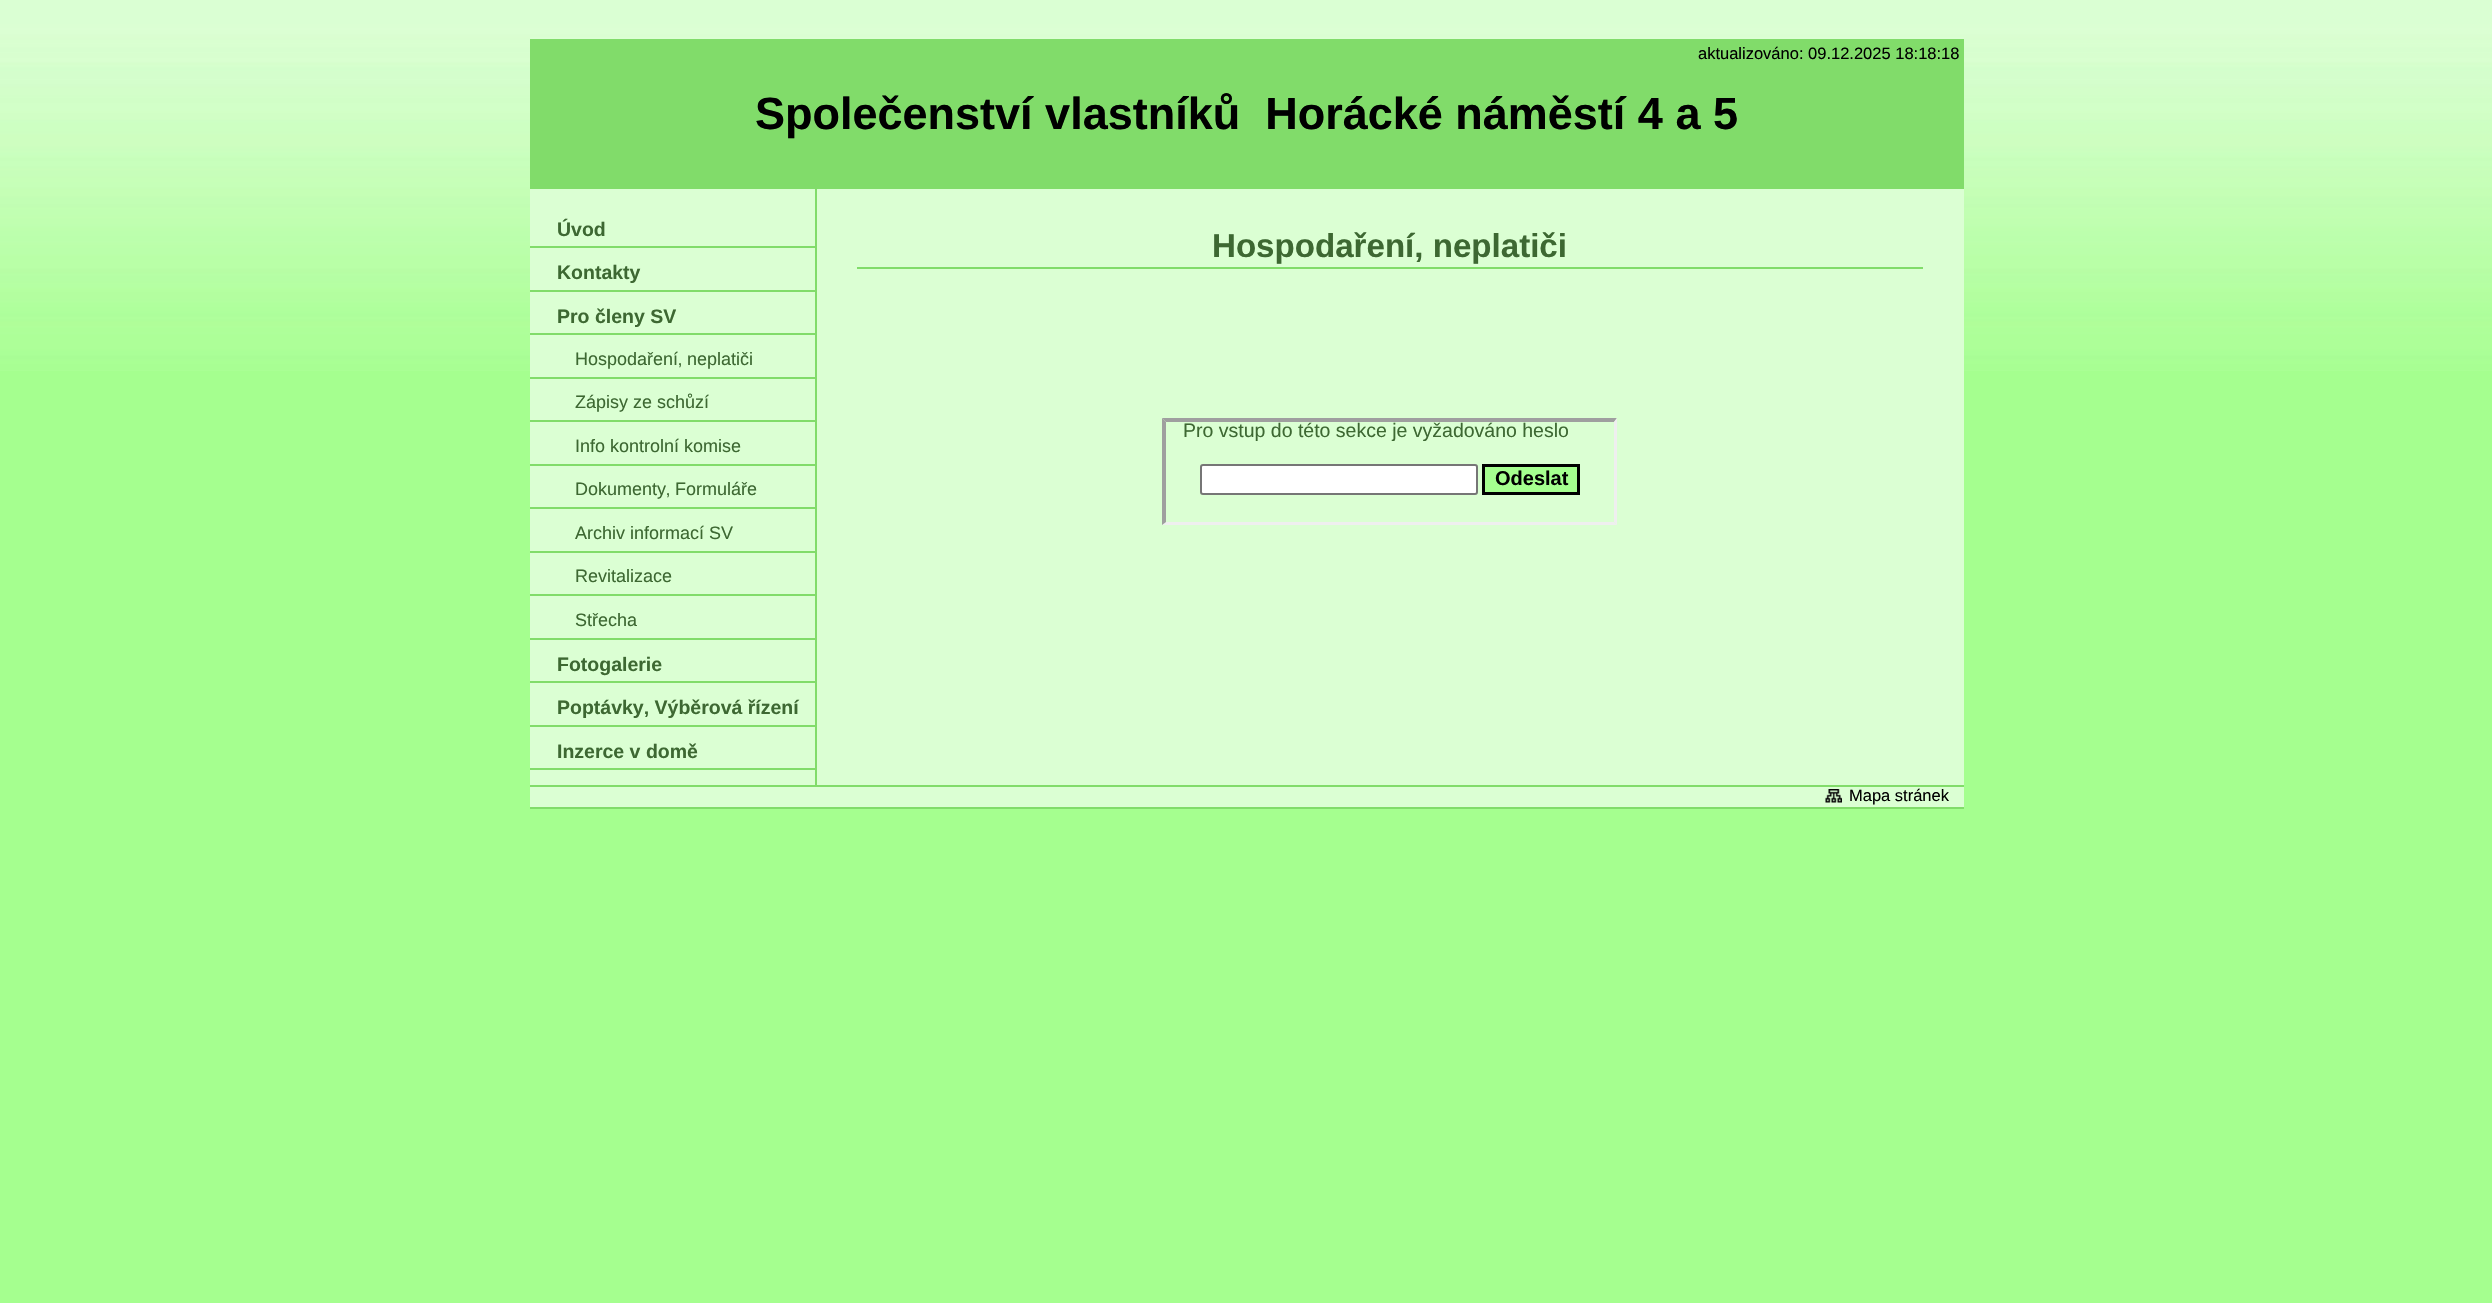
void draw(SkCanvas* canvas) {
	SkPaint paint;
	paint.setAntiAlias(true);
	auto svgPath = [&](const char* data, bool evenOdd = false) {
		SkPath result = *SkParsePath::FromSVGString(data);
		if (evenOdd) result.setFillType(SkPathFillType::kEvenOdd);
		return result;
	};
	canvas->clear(0xffa5ff8f);
	canvas->drawImageRect(SkImages::DeferredFromEncodedData(SkData::MakeFromFileName("img1.png")), SkRect::MakeXYWH(0, 0, 2492, 371), SkSamplingOptions());
	paint.setColor(0xffdbffd3);
	canvas->drawRect(SkRect::MakeXYWH(530, 37, 1434, 2), paint);
	paint.setColor(0xff81dc6a);
	canvas->drawRect(SkRect::MakeXYWH(530, 39, 1434, 150), paint);
	SkFont f1(fontMgr->matchFamilyStyle("Liberation Sans", SkFontStyle::Normal()), 16.5);
	f1.setSubpixel(true);
	paint.setColor(0xff000000);
	canvas->drawString("aktualizováno: 09.12.2025 18:18:18", 1698, 59, f1, paint);
	SkFont f2(fontMgr->matchFamilyStyle("Liberation Sans", SkFontStyle::Bold()), 45);
	f2.setSubpixel(true);
	canvas->drawString("Společenství vlastníků  Horácké náměstí 4 a 5", 755, 129, f2, paint);
	paint.setColor(0xffdbffd3);
	canvas->drawRect(SkRect::MakeXYWH(530, 189, 1434, 596), paint);
	paint.setColor(0xff81dc6a);
	canvas->drawRect(SkRect::MakeXYWH(530, 246, 285, 2), paint);
	SkFont f3(fontMgr->matchFamilyStyle("Liberation Sans", SkFontStyle::Bold()), 19.5);
	f3.setSubpixel(true);
	paint.setColor(0xff3d6832);
	canvas->drawString("Úvod", 557, 236, f3, paint);
	paint.setColor(0xff81dc6a);
	canvas->drawRect(SkRect::MakeXYWH(530, 290, 285, 2), paint);
	paint.setColor(0xff3d6832);
	canvas->drawString("Kontakty", 557, 279, f3, paint);
	paint.setColor(0xff81dc6a);
	canvas->drawRect(SkRect::MakeXYWH(530, 333, 285, 2), paint);
	paint.setColor(0xff3d6832);
	canvas->drawString("Pro členy SV", 557, 323, f3, paint);
	paint.setColor(0xff81dc6a);
	canvas->drawRect(SkRect::MakeXYWH(530, 377, 285, 2), paint);
	SkFont f4(fontMgr->matchFamilyStyle("Liberation Sans", SkFontStyle::Normal()), 18);
	f4.setSubpixel(true);
	paint.setColor(0xff3d6832);
	canvas->drawString("Hospodaření‚ neplatiči", 575, 365, f4, paint);
	paint.setColor(0xff81dc6a);
	canvas->drawRect(SkRect::MakeXYWH(530, 420, 285, 2), paint);
	paint.setColor(0xff3d6832);
	canvas->drawString("Zápisy ze schůzí", 575, 408, f4, paint);
	paint.setColor(0xff81dc6a);
	canvas->drawRect(SkRect::MakeXYWH(530, 464, 285, 2), paint);
	paint.setColor(0xff3d6832);
	canvas->drawString("Info kontrolní komise", 575, 452, f4, paint);
	paint.setColor(0xff81dc6a);
	canvas->drawRect(SkRect::MakeXYWH(530, 507, 285, 2), paint);
	paint.setColor(0xff3d6832);
	canvas->drawString("Dokumenty‚ Formuláře", 575, 495, f4, paint);
	paint.setColor(0xff81dc6a);
	canvas->drawRect(SkRect::MakeXYWH(530, 551, 285, 2), paint);
	paint.setColor(0xff3d6832);
	canvas->drawString("Archiv informací SV", 575, 539, f4, paint);
	paint.setColor(0xff81dc6a);
	canvas->drawRect(SkRect::MakeXYWH(530, 594, 285, 2), paint);
	paint.setColor(0xff3d6832);
	canvas->drawString("Revitalizace", 575, 582, f4, paint);
	paint.setColor(0xff81dc6a);
	canvas->drawRect(SkRect::MakeXYWH(530, 638, 285, 2), paint);
	paint.setColor(0xff3d6832);
	canvas->drawString("Střecha", 575, 626, f4, paint);
	paint.setColor(0xff81dc6a);
	canvas->drawRect(SkRect::MakeXYWH(530, 681, 285, 2), paint);
	paint.setColor(0xff3d6832);
	canvas->drawString("Fotogalerie", 557, 671, f3, paint);
	paint.setColor(0xff81dc6a);
	canvas->drawRect(SkRect::MakeXYWH(530, 725, 285, 2), paint);
	paint.setColor(0xff3d6832);
	canvas->drawString("Poptávky‚ Výběrová řízení", 557, 714, f3, paint);
	paint.setColor(0xff81dc6a);
	canvas->drawRect(SkRect::MakeXYWH(530, 768, 285, 2), paint);
	paint.setColor(0xff3d6832);
	canvas->drawString("Inzerce v domě", 557, 758, f3, paint);
	paint.setColor(0xff81dc6a);
	canvas->drawRect(SkRect::MakeXYWH(815, 189, 2, 596), paint);
	canvas->drawRect(SkRect::MakeXYWH(857, 267, 1066, 2), paint);
	SkFont f5(fontMgr->matchFamilyStyle("Liberation Sans", SkFontStyle::Bold()), 33.1);
	f5.setSubpixel(true);
	paint.setColor(0xff3d6832);
	canvas->drawString("Hospodaření‚ neplatiči", 1212, 257, f5, paint);
	paint.setColor(0xff9f9f9f);
	canvas->drawPath(svgPath("M1162 418H1617L1614 422H1166Z"), paint);
	paint.setColor(0xffefefef);
	canvas->drawPath(svgPath("M1617 418V525L1614 522V422Z"), paint);
	canvas->drawPath(svgPath("M1617 525H1162L1166 522H1614Z"), paint);
	paint.setColor(0xff9f9f9f);
	canvas->drawPath(svgPath("M1162 525V418L1166 422V522Z"), paint);
	SkFont f6(fontMgr->matchFamilyStyle("Liberation Sans", SkFontStyle::Normal()), 19.5);
	f6.setSubpixel(true);
	paint.setColor(0xff3d6832);
	canvas->drawString("Pro vstup do této sekce je vyžadováno heslo", 1183, 437, f6, paint);
	paint.setColor(0xffffffff);
	canvas->drawRoundRect(SkRect::MakeXYWH(1201, 465, 276, 29), 2, 2, paint);
	paint.setStroke(true);
	paint.setStrokeWidth(2);
	paint.setColor(0xff767676);
	canvas->drawRoundRect(SkRect::MakeXYWH(1201, 465, 276, 29), 2, 2, paint);
	paint.setStroke(false);
	paint.setColor(0xffa5ff8f);
	canvas->drawRect(SkRect::MakeXYWH(1483.5, 465.5, 95, 28), paint);
	paint.setStroke(true);
	paint.setStrokeWidth(3);
	paint.setColor(0xff000000);
	canvas->drawRect(SkRect::MakeXYWH(1483.5, 465.5, 95, 28), paint);
	SkFont f7(fontMgr->matchFamilyStyle("Liberation Sans", SkFontStyle::Bold()), 20);
	f7.setSubpixel(true);
	paint.setStroke(false);
	canvas->drawString("Odeslat", 1495, 485, f7, paint);
	paint.setColor(0xffdbffd3);
	canvas->drawRect(SkRect::MakeXYWH(530, 787, 1434, 20), paint);
	paint.setColor(0xff81dc6a);
	canvas->drawRect(SkRect::MakeXYWH(530, 785, 1434, 2), paint);
	canvas->drawImageRect(SkImages::DeferredFromEncodedData(SkData::MakeFromFileName("img2.png")), SkRect::MakeXYWH(1825, 789, 17, 14), SkSamplingOptions());
	paint.setColor(0xff000000);
	canvas->drawString("Mapa stránek", 1849, 801, f1, paint);
	paint.setColor(0xff81dc6a);
	canvas->drawRect(SkRect::MakeXYWH(530, 807, 1434, 2), paint);
}
